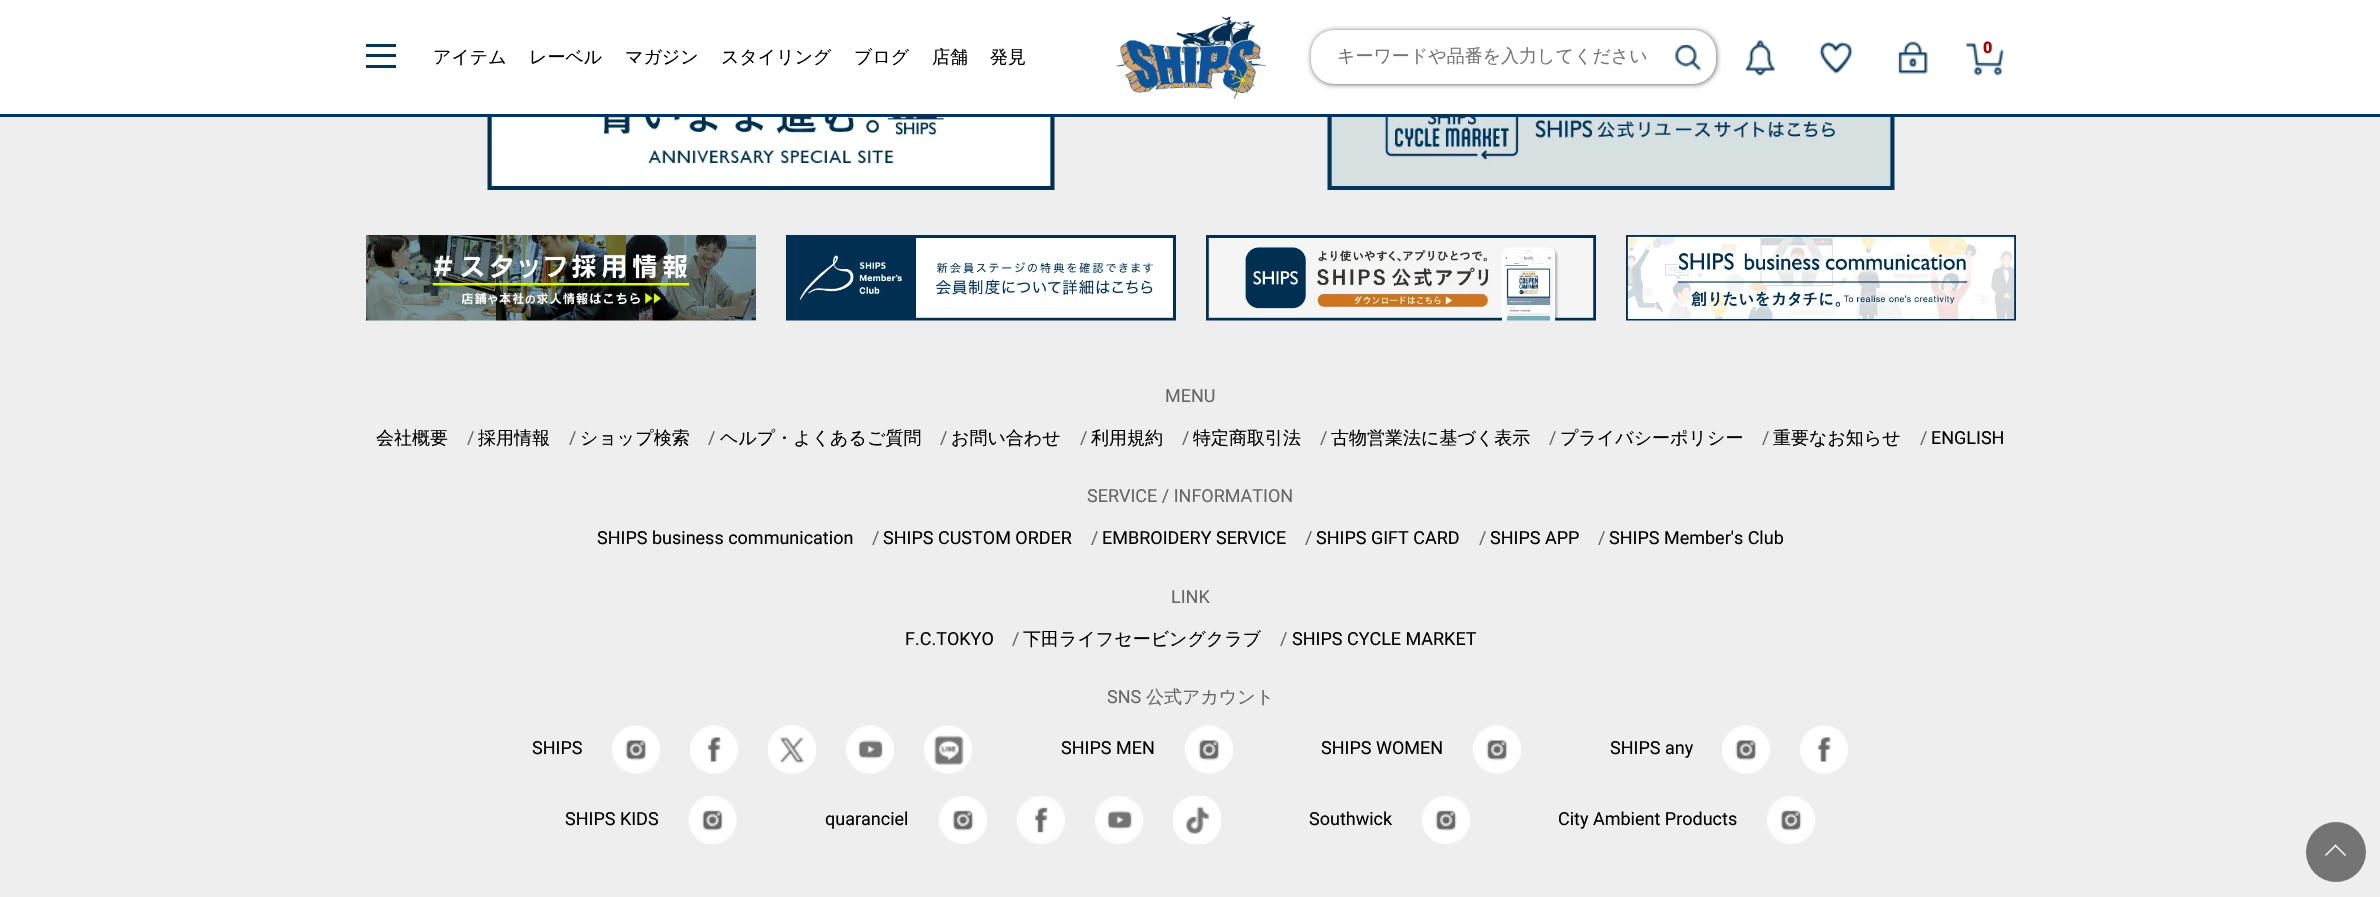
void draw(SkCanvas* canvas) {
	SkPaint paint;
	paint.setAntiAlias(true);
	auto spacedText = [&](const char* s, float x, float y, const SkFont& font, const SkPaint& ink, float letter, float word) {
		std::vector<SkGlyphID> glyphs(font.countText(s, strlen(s), SkTextEncoding::kUTF8));
		std::vector<float> xs(glyphs.size());
		font.textToGlyphs(s, strlen(s), SkTextEncoding::kUTF8, glyphs);
		font.getXPos(glyphs, xs, x);
		float extra = 0;
		for (size_t i = 0; i < glyphs.size(); i++) {
			xs[i] += extra;
			extra += letter + word * (glyphs[i] == font.unicharToGlyph(' '));
		}
		canvas->drawTextBlob(SkTextBlob::MakeFromPosHGlyphs(glyphs, xs, y, font), 0, 0, ink);
	};
	auto svgPath = [&](const char* data, bool evenOdd = false) {
		SkPath result = *SkParsePath::FromSVGString(data);
		if (evenOdd) result.setFillType(SkPathFillType::kEvenOdd);
		return result;
	};
	canvas->clear(0xffeeeeee);
	paint.setColor(0xffffffff);
	canvas->drawRect(SkRect::MakeXYWH(0, 0, 2380, 114), paint);
	paint.setColor(0xff04345a);
	canvas->drawRect(SkRect::MakeXYWH(0, 114, 2380, 3), paint);
	canvas->drawRect(SkRect::MakeXYWH(366, 54, 30, 3), paint);
	canvas->drawRect(SkRect::MakeXYWH(366, 44, 30, 3), paint);
	canvas->drawRect(SkRect::MakeXYWH(366, 65, 30, 3), paint);
	SkFont f1(fontMgr->matchFamilyStyle("WenQuanYi Zen Hei", SkFontStyle(500, SkFontStyle::kNormal_Width, SkFontStyle::kUpright_Slant)), 18);
	f1.setSubpixel(true);
	paint.setColor(0xff000000);
	canvas->drawString("アイテム", 433, 63, f1, paint);
	canvas->drawString("レーベル", 529, 63, f1, paint);
	canvas->drawString("マガジン", 625, 63, f1, paint);
	canvas->drawString("スタイリング", 721, 63, f1, paint);
	canvas->drawString("ブログ", 854, 63, f1, paint);
	canvas->drawString("店舗", 932, 63, f1, paint);
	canvas->drawString("発見", 990, 63, f1, paint);
	canvas->drawImageRect(SkImages::DeferredFromEncodedData(SkData::MakeFromFileName("img1.png")), SkRect::MakeXYWH(1116, 16, 150, 83), SkSamplingOptions());
	paint.setMaskFilter(SkMaskFilter::MakeBlur(kNormal_SkBlurStyle, 3));
	canvas->drawRoundRect(SkRect::MakeXYWH(1313, 32, 402, 51), 21, 21, paint);
	paint.setMaskFilter(nullptr);
	paint.setColor(0xffffffff);
	canvas->drawRoundRect(SkRect::MakeXYWH(1311, 30, 405, 54), 23, 23, paint);
	paint.setColor(0xff757575);
	canvas->drawString("キーワードや品番を入力してください", 1337, 62, f1, paint);
	canvas->drawImageRect(SkImages::DeferredFromEncodedData(SkData::MakeFromFileName("img2.png")), SkRect::MakeXYWH(1675, 45, 26, 26), SkSamplingOptions());
	canvas->drawImageRect(SkImages::DeferredFromEncodedData(SkData::MakeFromFileName("img3.png")), SkRect::MakeXYWH(1745, 40, 30, 36), SkSamplingOptions());
	canvas->drawImageRect(SkImages::DeferredFromEncodedData(SkData::MakeFromFileName("img4.png")), SkRect::MakeXYWH(1819, 41, 34, 33), SkSamplingOptions());
	canvas->drawImageRect(SkImages::DeferredFromEncodedData(SkData::MakeFromFileName("img5.png")), SkRect::MakeXYWH(1898, 41, 30, 33), SkSamplingOptions());
	canvas->drawImageRect(SkImages::DeferredFromEncodedData(SkData::MakeFromFileName("img6.png")), SkRect::MakeXYWH(1965, 43, 40, 33), SkSamplingOptions());
	SkFont f2(fontMgr->matchFamilyStyle("Roboto", SkFontStyle(900, SkFontStyle::kNormal_Width, SkFontStyle::kUpright_Slant)), 16);
	f2.setSubpixel(true);
	paint.setColor(0xffa50000);
	spacedText("0", 1983, 53, f2, paint, -2, 0);
	canvas->drawImageRect(SkImages::DeferredFromEncodedData(SkData::MakeFromFileName("img7.png")), SkRect::MakeXYWH(487, 117, 568, 73), SkSamplingOptions());
	canvas->drawImageRect(SkImages::DeferredFromEncodedData(SkData::MakeFromFileName("img8.png")), SkRect::MakeXYWH(1327, 117, 568, 73), SkSamplingOptions());
	canvas->drawImageRect(SkImages::DeferredFromEncodedData(SkData::MakeFromFileName("img9.png")), SkRect::MakeXYWH(366, 235, 390, 86), SkSamplingOptions());
	canvas->drawImageRect(SkImages::DeferredFromEncodedData(SkData::MakeFromFileName("img10.png")), SkRect::MakeXYWH(786, 235, 390, 86), SkSamplingOptions());
	canvas->drawImageRect(SkImages::DeferredFromEncodedData(SkData::MakeFromFileName("img11.png")), SkRect::MakeXYWH(1206, 235, 390, 86), SkSamplingOptions());
	canvas->drawImageRect(SkImages::DeferredFromEncodedData(SkData::MakeFromFileName("img12.png")), SkRect::MakeXYWH(1626, 235, 390, 86), SkSamplingOptions());
	SkFont f3(fontMgr->matchFamilyStyle("Roboto", SkFontStyle::Normal()), 18);
	f3.setSubpixel(true);
	paint.setColor(0xff666666);
	canvas->drawString("MENU", 1165, 402, f3, paint);
	paint.setColor(0xff000000);
	canvas->drawString("会社概要", 376, 444, f1, paint);
	paint.setColor(0xff666666);
	canvas->drawString("/", 467, 444, f3, paint);
	paint.setColor(0xff000000);
	canvas->drawString("採用情報", 478, 444, f1, paint);
	paint.setColor(0xff666666);
	canvas->drawString("/", 569, 444, f3, paint);
	paint.setColor(0xff000000);
	canvas->drawString("ショップ検索", 580, 444, f1, paint);
	paint.setColor(0xff666666);
	canvas->drawString("/", 708, 444, f3, paint);
	paint.setColor(0xff000000);
	canvas->drawString("ヘルプ・よくあるご質問", 720, 444, f1, paint);
	paint.setColor(0xff666666);
	canvas->drawString("/", 940, 444, f3, paint);
	paint.setColor(0xff000000);
	canvas->drawString("お問い合わせ", 951, 444, f1, paint);
	paint.setColor(0xff666666);
	canvas->drawString("/", 1080, 444, f3, paint);
	paint.setColor(0xff000000);
	canvas->drawString("利用規約", 1091, 444, f1, paint);
	paint.setColor(0xff666666);
	canvas->drawString("/", 1182, 444, f3, paint);
	paint.setColor(0xff000000);
	canvas->drawString("特定商取引法", 1193, 444, f1, paint);
	paint.setColor(0xff666666);
	canvas->drawString("/", 1320, 444, f3, paint);
	paint.setColor(0xff000000);
	canvas->drawString("古物営業法に基づく表示", 1331, 444, f1, paint);
	paint.setColor(0xff666666);
	canvas->drawString("/", 1549, 444, f3, paint);
	paint.setColor(0xff000000);
	canvas->drawString("プライバシーポリシー", 1560, 444, f1, paint);
	paint.setColor(0xff666666);
	canvas->drawString("/", 1762, 444, f3, paint);
	paint.setColor(0xff000000);
	canvas->drawString("重要なお知らせ", 1773, 444, f1, paint);
	paint.setColor(0xff666666);
	canvas->drawString("/", 1920, 444, f3, paint);
	paint.setColor(0xff000000);
	canvas->drawString("ENGLISH", 1931, 444, f3, paint);
	paint.setColor(0xff666666);
	canvas->drawString("SERVICE / INFORMATION", 1087, 502, f3, paint);
	paint.setColor(0xff000000);
	canvas->drawString("SHIPS business communication", 597, 544, f3, paint);
	paint.setColor(0xff666666);
	canvas->drawString("/", 872, 544, f3, paint);
	paint.setColor(0xff000000);
	canvas->drawString("SHIPS CUSTOM ORDER", 883, 544, f3, paint);
	paint.setColor(0xff666666);
	canvas->drawString("/", 1091, 544, f3, paint);
	paint.setColor(0xff000000);
	canvas->drawString("EMBROIDERY SERVICE", 1102, 544, f3, paint);
	paint.setColor(0xff666666);
	canvas->drawString("/", 1305, 544, f3, paint);
	paint.setColor(0xff000000);
	canvas->drawString("SHIPS GIFT CARD", 1316, 544, f3, paint);
	paint.setColor(0xff666666);
	canvas->drawString("/", 1479, 544, f3, paint);
	paint.setColor(0xff000000);
	canvas->drawString("SHIPS APP", 1490, 544, f3, paint);
	paint.setColor(0xff666666);
	canvas->drawString("/", 1598, 544, f3, paint);
	paint.setColor(0xff000000);
	canvas->drawString("SHIPS Member's Club", 1609, 544, f3, paint);
	paint.setColor(0xff666666);
	canvas->drawString("LINK", 1171, 603, f3, paint);
	paint.setColor(0xff000000);
	canvas->drawString("F.C.TOKYO", 905, 645, f3, paint);
	paint.setColor(0xff666666);
	canvas->drawString("/", 1012, 645, f3, paint);
	paint.setColor(0xff000000);
	canvas->drawString("下田ライフセービングクラブ", 1023, 645, f1, paint);
	paint.setColor(0xff666666);
	canvas->drawString("/", 1280, 645, f3, paint);
	paint.setColor(0xff000000);
	canvas->drawString("SHIPS CYCLE MARKET", 1292, 645, f3, paint);
	paint.setColor(0xff666666);
	canvas->drawString("SNS", 1107, 703, f3, paint);
	canvas->drawString("公式アカウント", 1146, 703, f1, paint);
	paint.setColor(0xff000000);
	canvas->drawString("SHIPS", 532, 754, f3, paint);
	canvas->drawImageRect(SkImages::DeferredFromEncodedData(SkData::MakeFromFileName("img13.png")), SkRect::MakeXYWH(612, 725, 48, 49), SkSamplingOptions());
	canvas->drawImageRect(SkImages::DeferredFromEncodedData(SkData::MakeFromFileName("img14.png")), SkRect::MakeXYWH(690, 725, 48, 49), SkSamplingOptions());
	canvas->drawImageRect(SkImages::DeferredFromEncodedData(SkData::MakeFromFileName("img15.png")), SkRect::MakeXYWH(768, 725, 48, 49), SkSamplingOptions());
	canvas->drawImageRect(SkImages::DeferredFromEncodedData(SkData::MakeFromFileName("img16.png")), SkRect::MakeXYWH(846, 725, 48, 49), SkSamplingOptions());
	canvas->drawImageRect(SkImages::DeferredFromEncodedData(SkData::MakeFromFileName("img17.png")), SkRect::MakeXYWH(924, 725, 48, 49), SkSamplingOptions());
	canvas->drawString("SHIPS MEN", 1061, 754, f3, paint);
	canvas->drawImageRect(SkImages::DeferredFromEncodedData(SkData::MakeFromFileName("img18.png")), SkRect::MakeXYWH(1185, 725, 48, 49), SkSamplingOptions());
	canvas->drawString("SHIPS WOMEN", 1321, 754, f3, paint);
	canvas->drawImageRect(SkImages::DeferredFromEncodedData(SkData::MakeFromFileName("img18.png")), SkRect::MakeXYWH(1473, 725, 48, 49), SkSamplingOptions());
	canvas->drawString("SHIPS any", 1610, 754, f3, paint);
	canvas->drawImageRect(SkImages::DeferredFromEncodedData(SkData::MakeFromFileName("img13.png")), SkRect::MakeXYWH(1722, 725, 48, 49), SkSamplingOptions());
	canvas->drawImageRect(SkImages::DeferredFromEncodedData(SkData::MakeFromFileName("img19.png")), SkRect::MakeXYWH(1800, 725, 48, 49), SkSamplingOptions());
	canvas->drawString("SHIPS KIDS", 565, 825, f3, paint);
	canvas->drawImageRect(SkImages::DeferredFromEncodedData(SkData::MakeFromFileName("img20.png")), SkRect::MakeXYWH(688, 796, 49, 48), SkSamplingOptions());
	canvas->drawString("quaranciel", 825, 825, f3, paint);
	canvas->drawImageRect(SkImages::DeferredFromEncodedData(SkData::MakeFromFileName("img21.png")), SkRect::MakeXYWH(939, 796, 48, 48), SkSamplingOptions());
	canvas->drawImageRect(SkImages::DeferredFromEncodedData(SkData::MakeFromFileName("img22.png")), SkRect::MakeXYWH(1017, 796, 48, 48), SkSamplingOptions());
	canvas->drawImageRect(SkImages::DeferredFromEncodedData(SkData::MakeFromFileName("img23.png")), SkRect::MakeXYWH(1095, 796, 48, 48), SkSamplingOptions());
	canvas->drawImageRect(SkImages::DeferredFromEncodedData(SkData::MakeFromFileName("img24.png")), SkRect::MakeXYWH(1173, 796, 48, 48), SkSamplingOptions());
	canvas->drawString("Southwick", 1309, 825, f3, paint);
	canvas->drawImageRect(SkImages::DeferredFromEncodedData(SkData::MakeFromFileName("img21.png")), SkRect::MakeXYWH(1422, 796, 48, 48), SkSamplingOptions());
	canvas->drawString("City Ambient Products", 1558, 825, f3, paint);
	canvas->drawImageRect(SkImages::DeferredFromEncodedData(SkData::MakeFromFileName("img21.png")), SkRect::MakeXYWH(1767, 796, 48, 48), SkSamplingOptions());
	paint.setColor(0xff747474);
	canvas->drawCircle(2336, 852, 30, paint);
	paint.setColor(0xffffffff);
	canvas->drawPath(svgPath("M2335.5 844.5L2346 855L2345 856L2334.5 845.5Z"), paint);
	canvas->drawPath(svgPath("M2335.5 844.5L2336.5 845.5L2326 856L2325 855Z"), paint);
}
